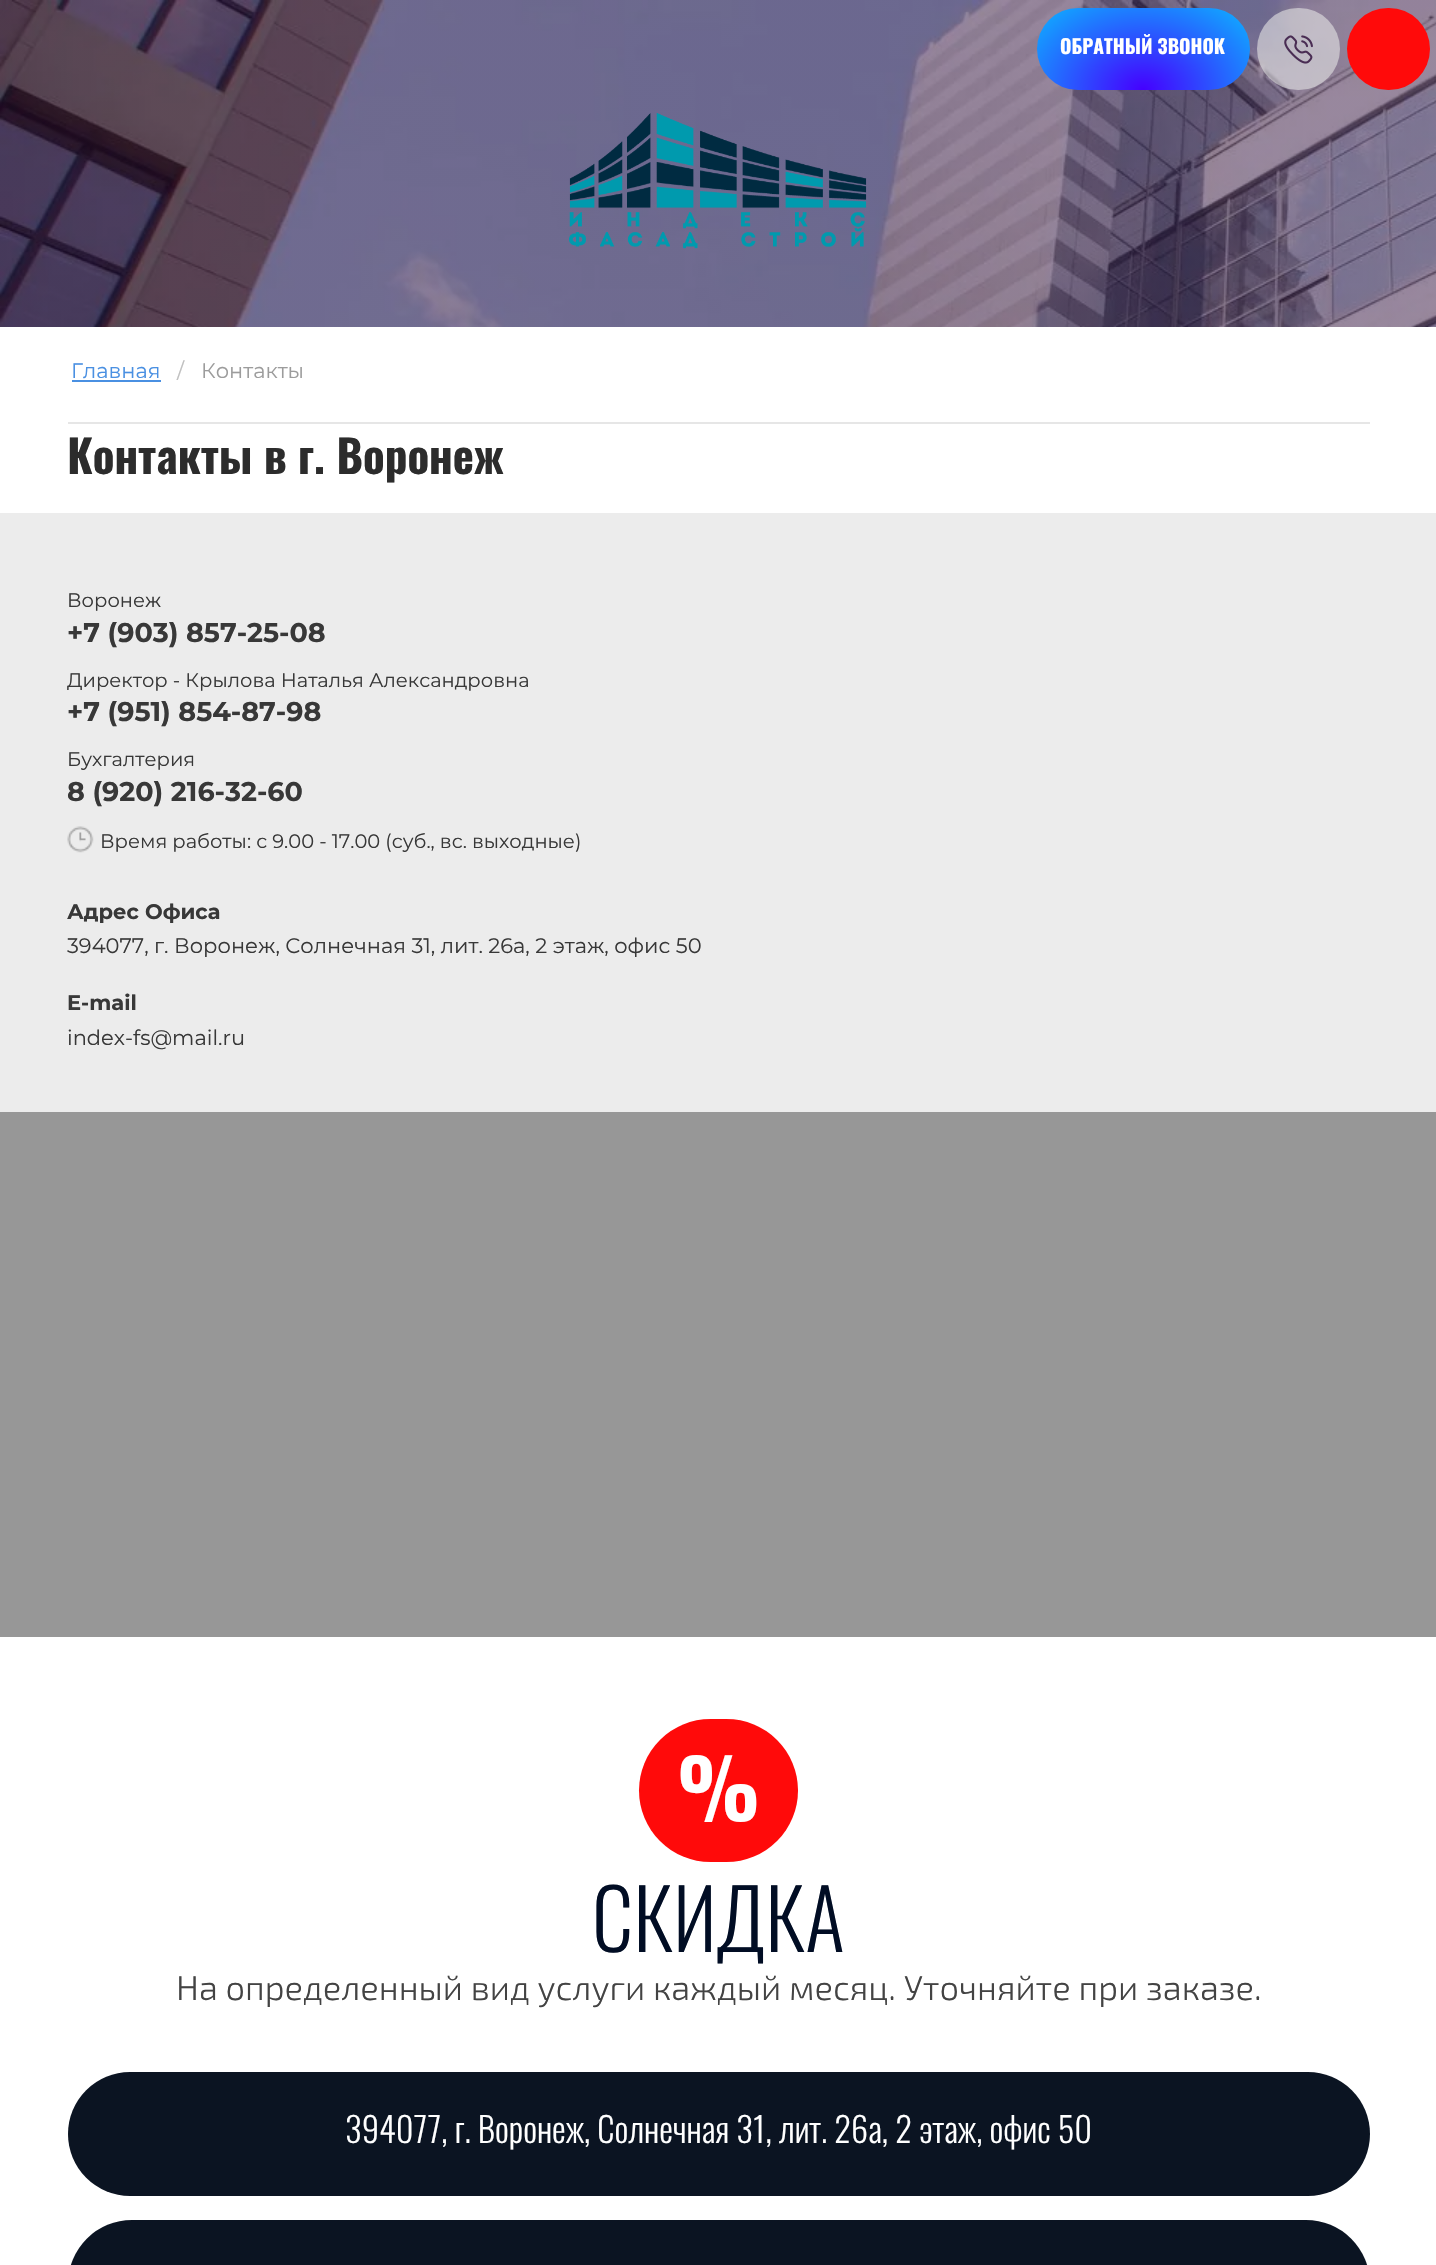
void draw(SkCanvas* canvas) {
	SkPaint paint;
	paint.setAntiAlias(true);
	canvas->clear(0xffffffff);
	canvas->drawImageRect(SkImages::DeferredFromEncodedData(SkData::MakeFromFileName("img1.png")), SkRect::MakeXYWH(0, 0, 1436, 327), SkSamplingOptions());
	canvas->drawImageRect(SkImages::DeferredFromEncodedData(SkData::MakeFromFileName("img2.png")), SkRect::MakeXYWH(569, 113, 298, 136), SkSamplingOptions());
	{
		const SkColor colors[] = {0xff4500ff, 0xff0cb7ff};
		const float stops[] = {0, 1};
		SkMatrix m = SkMatrix::Translate(1143, 90).preScale(151, 117);
		paint.setShader(SkGradientShader::MakeRadial({0, 0}, 1, colors, stops, 2, SkTileMode::kClamp, 0, &m));
		paint.setAlpha(255);
	}
	canvas->drawRoundRect(SkRect::MakeXYWH(1037, 8, 213, 82), 41, 41, paint);
	SkFont f1(fontMgr->matchFamilyStyle("Oswald", SkFontStyle::Bold()), 19.5);
	f1.setSubpixel(true);
	paint.setShader(nullptr);
	paint.setColor(0xffffffff);
	canvas->drawString("ОБРАТНЫЙ ЗВОНОК", 1060, 54, f1, paint);
	paint.setColor(0x99e5e5e5);
	canvas->drawRoundRect(SkRect::MakeXYWH(1257, 8, 83, 82), 41, 41, paint);
	canvas->drawImageRect(SkImages::DeferredFromEncodedData(SkData::MakeFromFileName("img3.png")), SkRect::MakeXYWH(1284, 35, 29, 29), SkSamplingOptions());
	paint.setColor(0xffff0a0a);
	canvas->drawRoundRect(SkRect::MakeXYWH(1347, 8, 83, 82), 41, 41, paint);
	paint.setColor(0xffe6e6e6);
	canvas->drawRect(SkRect::MakeXYWH(68, 422, 1302, 2), paint);
	SkFont f2(fontMgr->matchFamilyStyle("Montserrat", SkFontStyle::Normal()), 21);
	f2.setSubpixel(true);
	paint.setColor(0xff4a90e2);
	canvas->drawString("Главная", 71, 378, f2, paint);
	canvas->drawRect(SkRect::MakeXYWH(72, 380, 89, 2), paint);
	paint.setColor(0xffc0c0c0);
	canvas->drawString("/", 177, 378, f2, paint);
	paint.setColor(0xff9c9c9c);
	canvas->drawString("Контакты", 201, 378, f2, paint);
	SkFont f3(fontMgr->matchFamilyStyle("Oswald", SkFontStyle::Bold()), 45);
	f3.setSubpixel(true);
	paint.setColor(0xff2c2c2c);
	canvas->drawString("Контакты в г. Воронеж", 67, 474, f3, paint);
	paint.setColor(0xffececec);
	canvas->drawRect(SkRect::MakeXYWH(0, 513, 1436, 599), paint);
	SkFont f4(fontMgr->matchFamilyStyle("Montserrat", SkFontStyle::Normal()), 19.5);
	f4.setSubpixel(true);
	paint.setColor(0xff383838);
	canvas->drawString("Воронеж", 67, 607, f4, paint);
	SkFont f5(fontMgr->matchFamilyStyle("Montserrat", SkFontStyle::Bold()), 27);
	f5.setSubpixel(true);
	canvas->drawString("+7 (903) 857-25-08", 67, 642, f5, paint);
	canvas->drawString("Директор - Крылова Наталья Александровна", 67, 687, f4, paint);
	canvas->drawString("+7 (951) 854-87-98", 67, 721, f5, paint);
	canvas->drawString("Бухгалтерия", 67, 766, f4, paint);
	canvas->drawString("8 (920) 216-32-60", 67, 801, f5, paint);
	canvas->drawImageRect(SkImages::DeferredFromEncodedData(SkData::MakeFromFileName("img4.png")), SkRect::MakeXYWH(67, 826, 27, 27), SkSamplingOptions());
	canvas->drawString("Время работы: с 9.00 - 17.00 (суб., вс. выходные)", 100, 848, f4, paint);
	SkFont f6(fontMgr->matchFamilyStyle("Montserrat", SkFontStyle::Bold()), 21);
	f6.setSubpixel(true);
	canvas->drawString("Адрес Офиса", 67, 919, f6, paint);
	canvas->drawString("394077, г. Воронеж, Солнечная 31, лит. 26а, 2 этаж, офис 50", 67, 953, f2, paint);
	canvas->drawString("E-mail", 67, 1010, f6, paint);
	canvas->drawString("index-fs@mail.ru", 67, 1045, f2, paint);
	paint.setColor(0xff979797);
	canvas->drawRect(SkRect::MakeXYWH(0, 1112, 1436, 525), paint);
	paint.setColor(0xffff0a0a);
	canvas->drawRoundRect(SkRect::MakeXYWH(639, 1719, 159, 143), 71.5, 71.5, paint);
	SkFont f7(fontMgr->matchFamilyStyle("Oswald", SkFontStyle::Bold()), 82.5);
	f7.setSubpixel(true);
	paint.setColor(0xffffffff);
	canvas->drawString("%", 677, 1822, f7, paint);
	SkFont f8(fontMgr->matchFamilyStyle("Oswald", SkFontStyle(300, SkFontStyle::kNormal_Width, SkFontStyle::kUpright_Slant)), 82.5);
	f8.setSubpixel(true);
	paint.setColor(0xff010d24);
	canvas->drawString("СКИДКА", 592, 1952, f8, paint);
	SkFont f9(fontMgr->matchFamilyStyle("Exo 2", SkFontStyle(300, SkFontStyle::kNormal_Width, SkFontStyle::kUpright_Slant)), 34.5);
	f9.setSubpixel(true);
	paint.setColor(0xff434343);
	canvas->drawString("На определенный вид услуги каждый месяц. Уточняйте при заказе.", 176, 2000, f9, paint);
	paint.setColor(0xff0b1422);
	canvas->drawRoundRect(SkRect::MakeXYWH(68, 2072, 1302, 124), 62, 62, paint);
	SkFont f10(fontMgr->matchFamilyStyle("Oswald", SkFontStyle(300, SkFontStyle::kNormal_Width, SkFontStyle::kUpright_Slant)), 34.5);
	f10.setSubpixel(true);
	paint.setColor(0xffffffff);
	canvas->drawString("394077, г. Воронеж, Солнечная 31, лит. 26а, 2 этаж, офис 50", 345, 2143, f10, paint);
	paint.setColor(0xff0b1422);
	canvas->drawRoundRect(SkRect::MakeXYWH(68, 2220, 1302, 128), 83, 83, paint);
}
